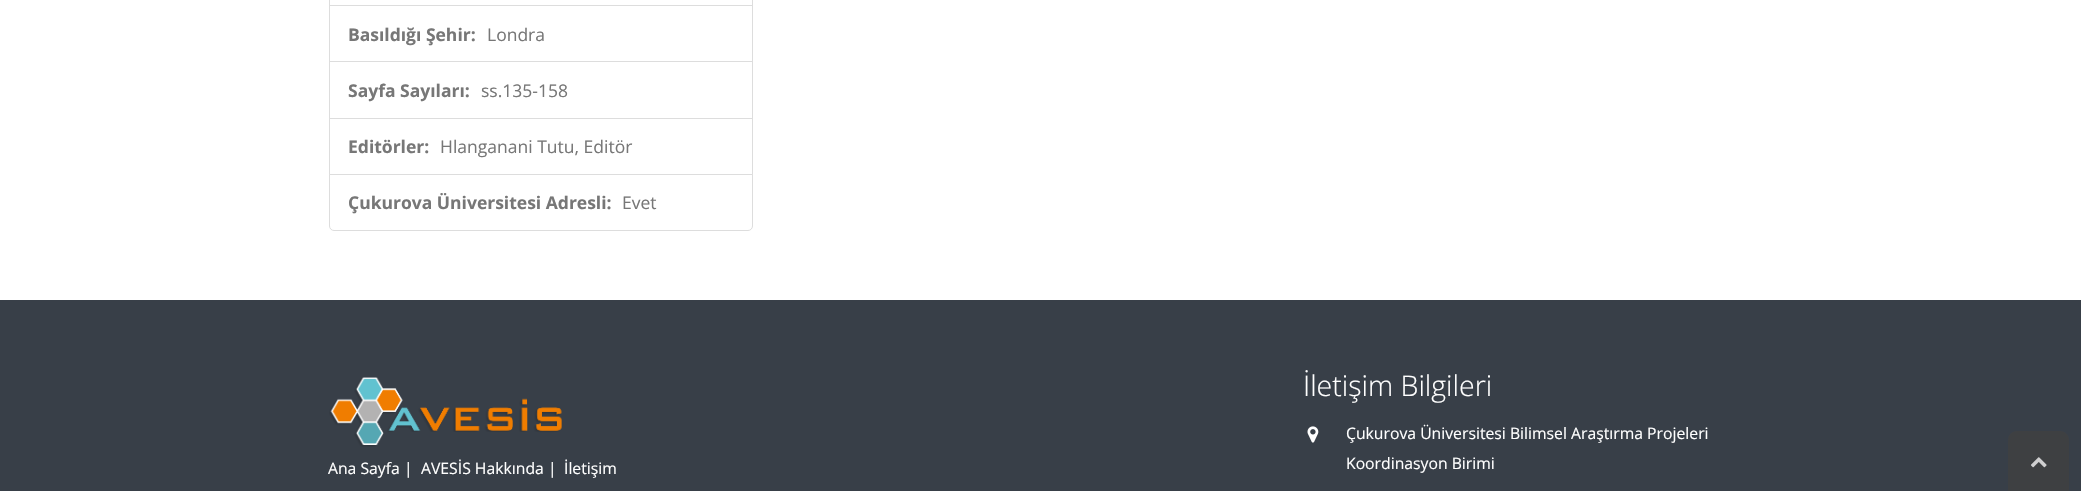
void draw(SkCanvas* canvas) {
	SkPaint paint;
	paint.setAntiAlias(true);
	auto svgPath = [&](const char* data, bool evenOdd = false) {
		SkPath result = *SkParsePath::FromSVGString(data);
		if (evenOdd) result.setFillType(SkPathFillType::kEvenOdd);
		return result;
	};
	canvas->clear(0xffffffff);
	paint.setStroke(true);
	paint.setStrokeWidth(1);
	paint.setColor(0xffdddddd);
	canvas->drawRect(SkRect::MakeXYWH(329.5, -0.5, 423, 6), paint);
	canvas->drawRect(SkRect::MakeXYWH(329.5, 5.5, 423, 57), paint);
	SkFont f1(fontMgr->matchFamilyStyle("Open Sans", SkFontStyle::Bold()), 17.5);
	f1.setSubpixel(true);
	paint.setStroke(false);
	paint.setColor(0xff777777);
	canvas->drawString("Basıldığı Şehir:", 348, 41, f1, paint);
	SkFont f2(fontMgr->matchFamilyStyle("Open Sans", SkFontStyle::Normal()), 17.5);
	f2.setSubpixel(true);
	canvas->drawString("Londra", 487, 41, f2, paint);
	paint.setColor(0xffffffff);
	canvas->drawRect(SkRect::MakeXYWH(330, 62, 422, 1), paint);
	paint.setStroke(true);
	paint.setColor(0xffdddddd);
	canvas->drawRect(SkRect::MakeXYWH(329.5, 61.5, 423, 57), paint);
	paint.setStroke(false);
	paint.setColor(0xff777777);
	canvas->drawString("Sayfa Sayıları:", 348, 97, f1, paint);
	canvas->drawString("ss.135-158", 481, 97, f2, paint);
	paint.setStroke(true);
	paint.setColor(0xffdddddd);
	canvas->drawRect(SkRect::MakeXYWH(329.5, 118.5, 423, 56), paint);
	paint.setStroke(false);
	paint.setColor(0xff777777);
	canvas->drawString("Editörler:", 348, 153, f1, paint);
	canvas->drawString("Hlanganani Tutu, Editör", 440, 153, f2, paint);
	paint.setColor(0xffffffff);
	canvas->drawPath(svgPath("M329.5 174.5H752.5V226C752.5 228.5 750.5 230.5 748 230.5H334C331.5 230.5 329.5 228.5 329.5 226Z"), paint);
	paint.setStroke(true);
	paint.setColor(0xffdddddd);
	canvas->drawPath(svgPath("M329.5 174.5H752.5V226C752.5 228.5 750.5 230.5 748 230.5H334C331.5 230.5 329.5 228.5 329.5 226Z"), paint);
	paint.setStroke(false);
	paint.setColor(0xff777777);
	canvas->drawString("Çukurova Üniversitesi Adresli:", 348, 209, f1, paint);
	canvas->drawString("Evet", 622, 209, f2, paint);
	paint.setColor(0xff383f48);
	canvas->drawRect(SkRect::MakeXYWH(0, 300, 2081, 191), paint);
	canvas->drawImageRect(SkImages::DeferredFromEncodedData(SkData::MakeFromFileName("img1.png")), SkRect::MakeXYWH(329, 377, 233, 70), SkSamplingOptions());
	SkFont f3(fontMgr->matchFamilyStyle("Open Sans", SkFontStyle::Normal()), 15.75);
	f3.setSubpixel(true);
	paint.setColor(0xffffffff);
	canvas->drawString("Ana Sayfa |", 328, 474, f3, paint);
	canvas->drawString("AVESİS Hakkında |", 421, 474, f3, paint);
	canvas->drawString("İletişim", 564, 474, f3, paint);
	SkFont f4(fontMgr->matchFamilyStyle("Open Sans", SkFontStyle(300, SkFontStyle::kNormal_Width, SkFontStyle::kUpright_Slant)), 28.5);
	f4.setSubpixel(true);
	canvas->drawString("İletişim Bilgileri", 1303, 396, f4, paint);
	canvas->drawImageRect(SkImages::DeferredFromEncodedData(SkData::MakeFromFileName("img2.png")), SkRect::MakeXYWH(1307, 426, 12, 17), SkSamplingOptions());
	canvas->drawString("Çukurova Üniversitesi Bilimsel Araştırma Projeleri", 1346, 439, f3, paint);
	canvas->drawString("Koordinasyon Birimi", 1346, 469, f3, paint);
	paint.setColor(0xff3e4042);
	canvas->drawPath(svgPath("M2017 431H2060C2065 431 2069 435 2069 440V491H2008V440C2008 435 2012 431 2017 431Z"), paint);
	canvas->drawImageRect(SkImages::DeferredFromEncodedData(SkData::MakeFromFileName("img3.png")), SkRect::MakeXYWH(2031, 457, 16, 11), SkSamplingOptions());
}
